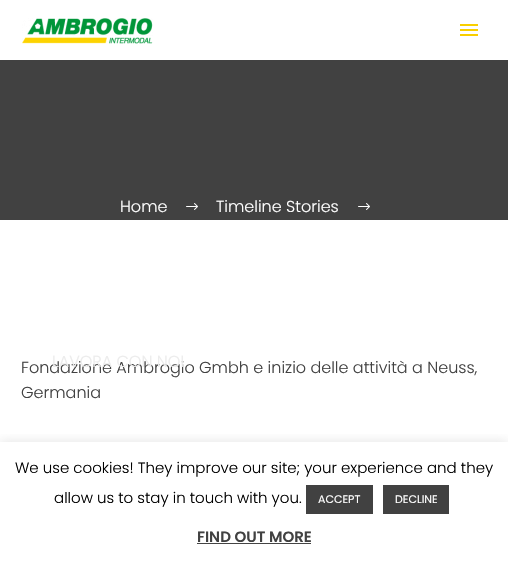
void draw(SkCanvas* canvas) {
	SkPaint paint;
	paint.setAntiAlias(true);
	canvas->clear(0xffffffff);
	paint.setColor(0xff414141);
	canvas->drawRect(SkRect::MakeXYWH(0, 60, 508, 160), paint);
	SkFont f1(fontMgr->matchFamilyStyle("Poppins", SkFontStyle(300, SkFontStyle::kNormal_Width, SkFontStyle::kUpright_Slant)), 16);
	f1.setSubpixel(true);
	paint.setColor(0xffffffff);
	canvas->drawString("Home", 120, 212, f1, paint);
	canvas->drawImageRect(SkImages::DeferredFromEncodedData(SkData::MakeFromFileName("img1.png")), SkRect::MakeXYWH(186, 203, 12, 7), SkSamplingOptions());
	canvas->drawString("Timeline Stories", 216, 212, f1, paint);
	canvas->drawImageRect(SkImages::DeferredFromEncodedData(SkData::MakeFromFileName("img1.png")), SkRect::MakeXYWH(358, 203, 12, 7), SkSamplingOptions());
	paint.setColor(0xff414141);
	canvas->drawString("Fondazione Ambrogio Gmbh e inizio delle attività a Neuss,", 21, 373, f1, paint);
	canvas->drawString("Germania", 21, 398, f1, paint);
	canvas->drawImageRect(SkImages::DeferredFromEncodedData(SkData::MakeFromFileName("img2.png")), SkRect::MakeXYWH(22, 18, 131, 26), SkSamplingOptions());
	paint.setColor(0xfff9cf00);
	canvas->drawRect(SkRect::MakeXYWH(460, 24, 18, 2), paint);
	canvas->drawRect(SkRect::MakeXYWH(460, 29, 18, 2), paint);
	canvas->drawRect(SkRect::MakeXYWH(460, 34, 18, 2), paint);
	paint.setColor(0xffececec);
	canvas->drawString("LAVORA CON NOI", 52, 367, f1, paint);
	canvas->save();
	canvas->clipRect(SkRect::MakeXYWH(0, 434, 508, 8));
	paint.setColor(0x4dacabab);
	paint.setMaskFilter(SkMaskFilter::MakeBlur(kNormal_SkBlurStyle, 5));
	canvas->drawRect(SkRect::MakeXYWH(0, 441, 508, 124), paint);
	paint.setMaskFilter(nullptr);
	canvas->restore();
	SkFont f2(fontMgr->matchFamilyStyle("Poppins", SkFontStyle(300, SkFontStyle::kNormal_Width, SkFontStyle::kUpright_Slant)), 15);
	f2.setSubpixel(true);
	paint.setColor(0xff000000);
	canvas->drawString("We use cookies! They improve our site; your experience and they", 15, 473, f2, paint);
	canvas->drawString("allow us to stay in touch with you.", 54, 503, f2, paint);
	paint.setColor(0xff414141);
	canvas->drawRect(SkRect::MakeXYWH(306, 485, 67, 29), paint);
	SkFont f3(fontMgr->matchFamilyStyle("Poppins", SkFontStyle::Normal()), 11);
	f3.setSubpixel(true);
	paint.setColor(0xffffffff);
	canvas->drawString("ACCEPT", 318, 503, f3, paint);
	paint.setColor(0xff414141);
	canvas->drawRect(SkRect::MakeXYWH(383, 485, 66, 29), paint);
	paint.setColor(0xffffffff);
	canvas->drawString("DECLINE", 395, 503, f3, paint);
	SkFont f4(fontMgr->matchFamilyStyle("Poppins", SkFontStyle(600, SkFontStyle::kNormal_Width, SkFontStyle::kUpright_Slant)), 15);
	f4.setSubpixel(true);
	paint.setColor(0xff414141);
	canvas->drawString("FIND OUT MORE", 197, 542, f4, paint);
	paint.setColor(0xff444444);
	canvas->drawRect(SkRect::MakeXYWH(197, 543, 114, 1), paint);
}
